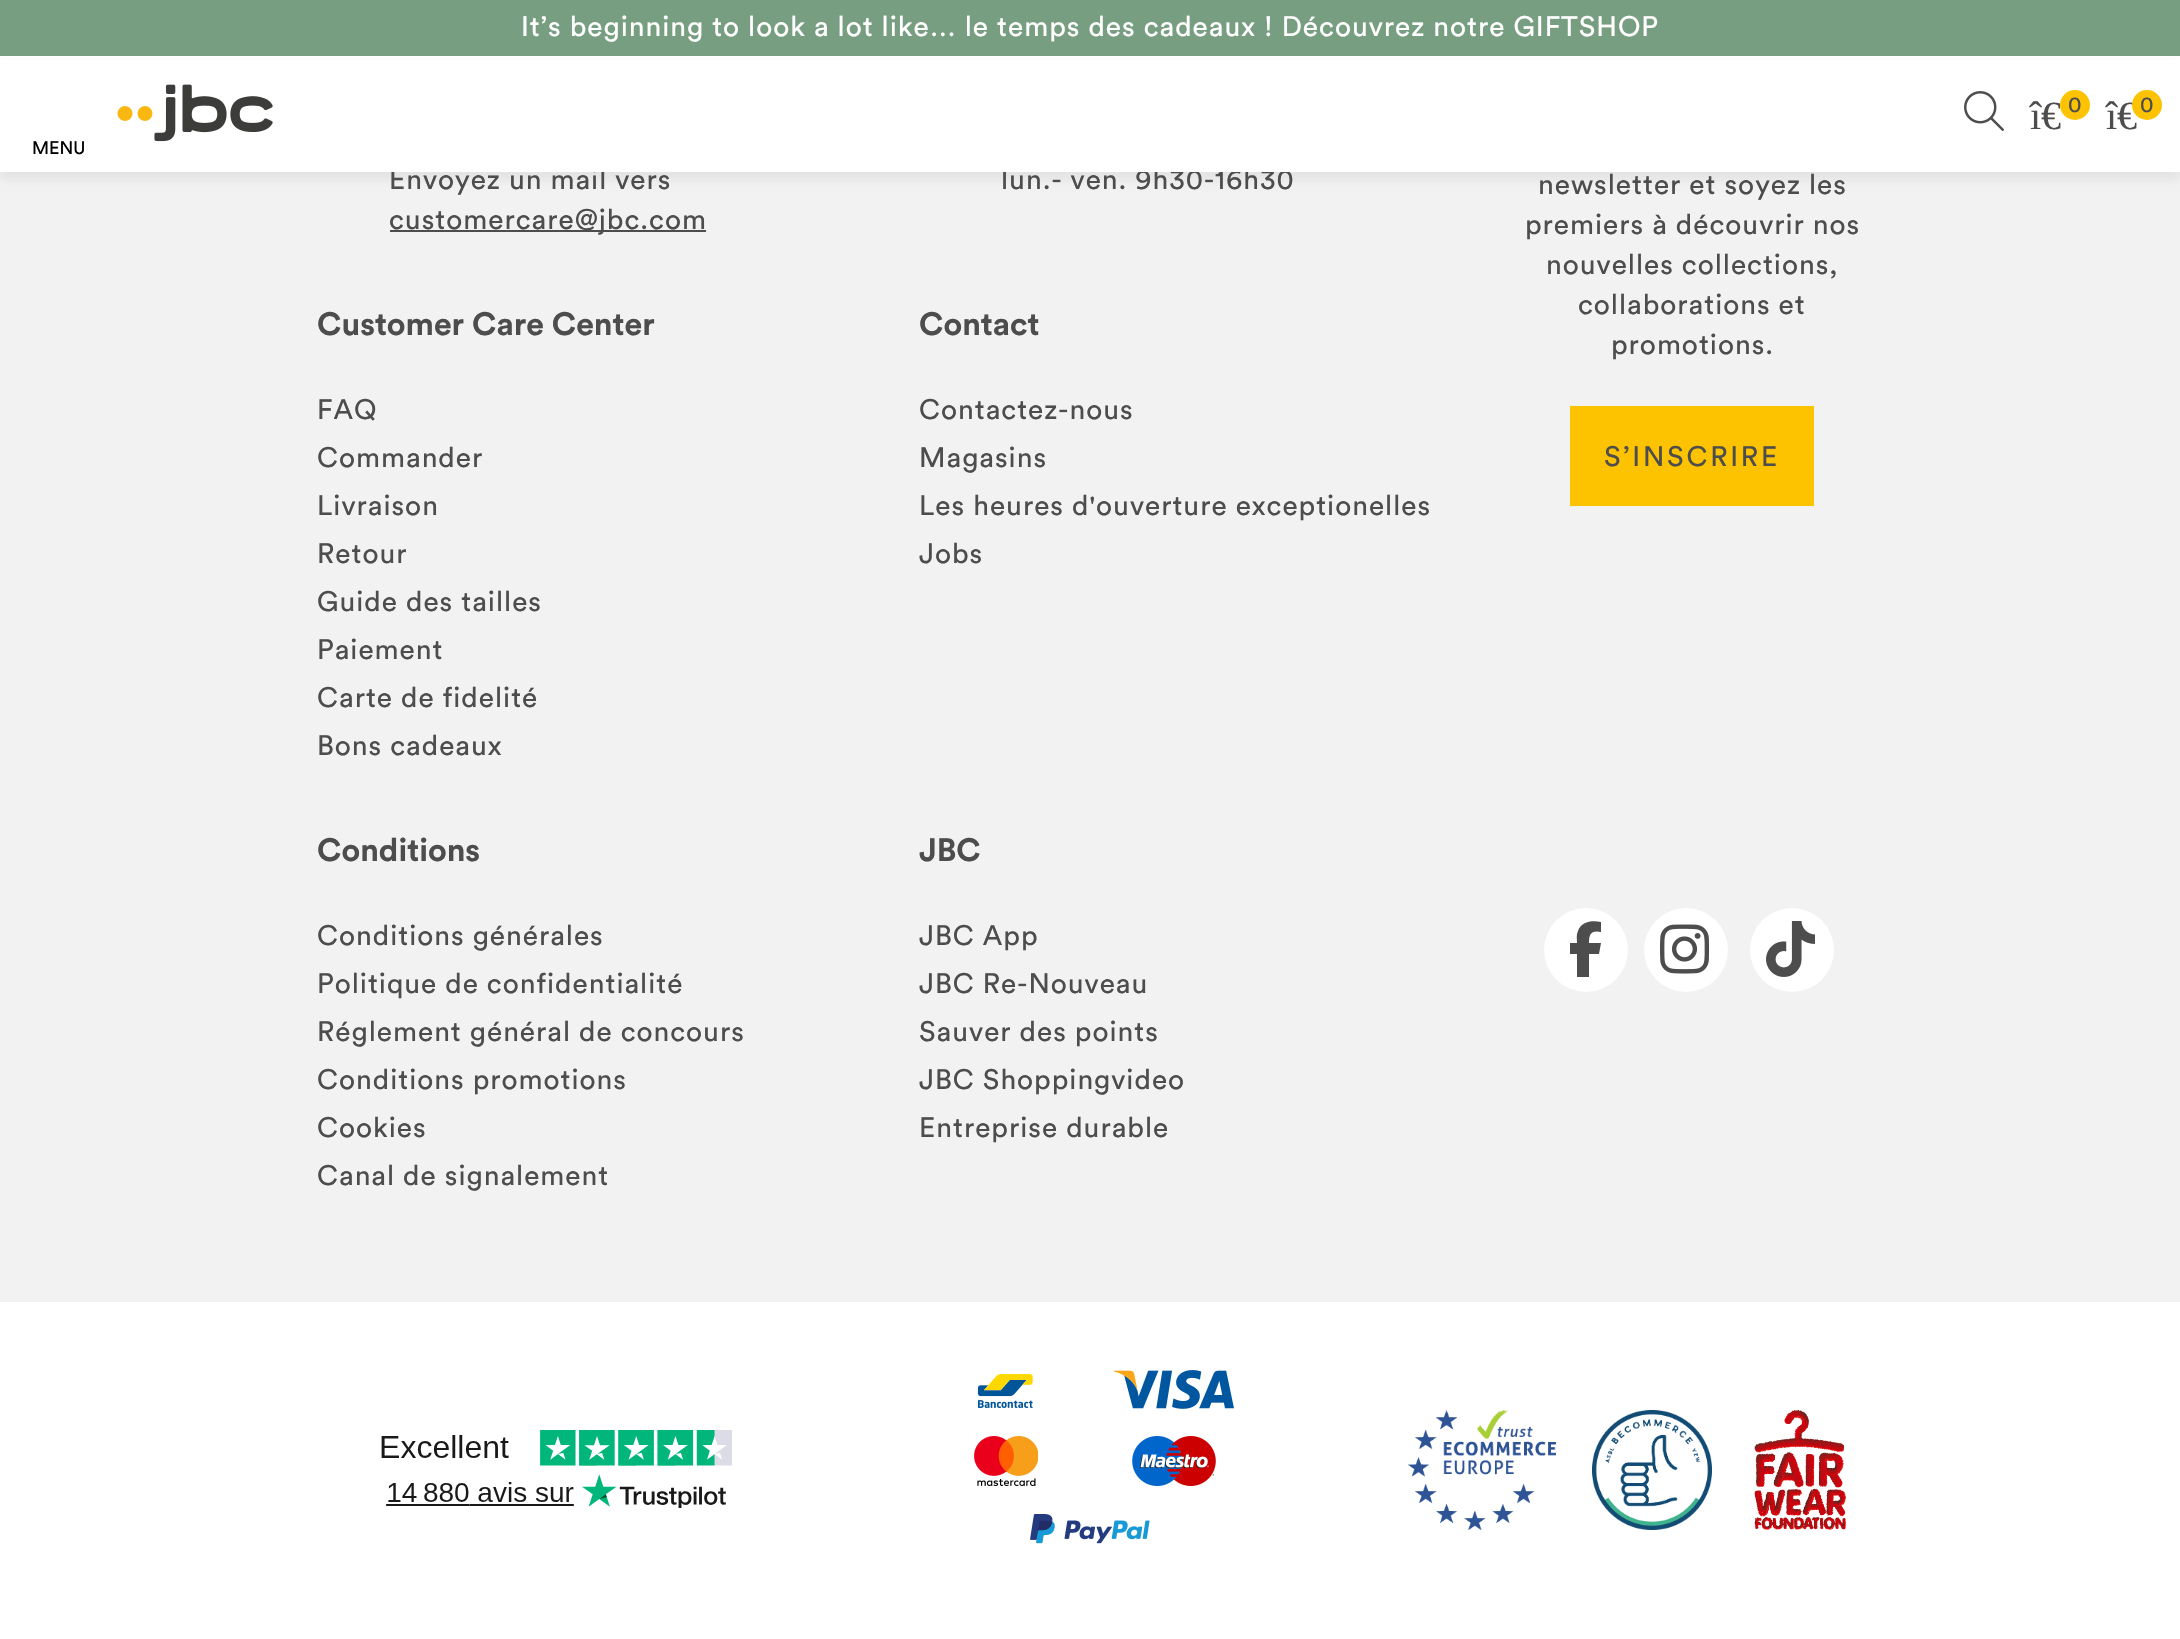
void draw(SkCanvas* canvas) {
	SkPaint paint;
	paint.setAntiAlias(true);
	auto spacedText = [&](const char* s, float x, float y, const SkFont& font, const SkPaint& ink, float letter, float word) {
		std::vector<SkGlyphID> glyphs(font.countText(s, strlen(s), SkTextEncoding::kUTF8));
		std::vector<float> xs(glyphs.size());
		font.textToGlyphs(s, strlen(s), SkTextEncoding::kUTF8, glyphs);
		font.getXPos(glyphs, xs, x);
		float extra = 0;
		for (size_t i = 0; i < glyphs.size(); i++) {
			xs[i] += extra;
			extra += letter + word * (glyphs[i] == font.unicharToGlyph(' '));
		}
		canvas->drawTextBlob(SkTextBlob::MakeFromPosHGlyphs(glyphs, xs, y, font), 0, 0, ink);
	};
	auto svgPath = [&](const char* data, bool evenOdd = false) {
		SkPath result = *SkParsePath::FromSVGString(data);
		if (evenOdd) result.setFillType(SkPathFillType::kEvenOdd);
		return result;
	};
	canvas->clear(0xffffffff);
	paint.setColor(0xfff2f2f2);
	canvas->drawRect(SkRect::MakeXYWH(0, 172, 2180, 1130), paint);
	paint.setColor(0x0f000000);
	paint.setMaskFilter(SkMaskFilter::MakeBlur(kNormal_SkBlurStyle, 4));
	canvas->drawRect(SkRect::MakeXYWH(0, 64, 2180, 116), paint);
	paint.setMaskFilter(nullptr);
	paint.setColor(0xff779e80);
	canvas->drawRect(SkRect::MakeXYWH(0, 0, 2180, 56), paint);
	SkFont f1(fontMgr->matchFamilyStyle("Circular", SkFontStyle::Normal()), 28);
	f1.setSubpixel(true);
	paint.setColor(0xffffffff);
	spacedText("It’s beginning to look a lot like… le temps des cadeaux ! Découvrez notre GIFTSHOP", 521, 36, f1, paint, 1, 0);
	paint.setColor(0xff4d4d4d);
	spacedText("Envoyez un mail vers", 389, 189, f1, paint, 1, 0);
	spacedText("lun.- ven. 9h30-16h30", 1001, 189, f1, paint, 1, 0);
	paint.setColor(0xffffffff);
	canvas->drawRect(SkRect::MakeXYWH(0, 60, 2180, 112), paint);
	canvas->drawImageRect(SkImages::DeferredFromEncodedData(SkData::MakeFromFileName("img1.png")), SkRect::MakeXYWH(1964, 91, 40, 40), SkSamplingOptions());
	SkFont f2(fontMgr->matchFamilyStyle("Liberation Serif", SkFontStyle::Normal()), 40);
	f2.setSubpixel(true);
	paint.setColor(0xff4d4d4d);
	canvas->drawString("î€", 2030, 129, f2, paint);
	paint.setColor(0xfffdc300);
	canvas->drawCircle(2075, 105, 15, paint);
	SkFont f3(fontMgr->matchFamilyStyle("Circular", SkFontStyle::Normal()), 22);
	f3.setSubpixel(true);
	paint.setColor(0xff4d4d4d);
	canvas->drawString("0", 2068, 112, f3, paint);
	canvas->drawString("î€", 2106, 129, f2, paint);
	paint.setColor(0xfffdc300);
	canvas->drawCircle(2147, 105, 15, paint);
	paint.setColor(0xff4d4d4d);
	canvas->drawString("0", 2140, 112, f3, paint);
	canvas->drawImageRect(SkImages::DeferredFromEncodedData(SkData::MakeFromFileName("img2.png")), SkRect::MakeXYWH(117, 84, 156, 58), SkSamplingOptions());
	SkFont f4(fontMgr->matchFamilyStyle("Circular", SkFontStyle::Normal()), 18);
	f4.setSubpixel(true);
	paint.setColor(0xff000000);
	canvas->drawString("MENU", 32, 154, f4, paint);
	paint.setColor(0xff4d4d4d);
	canvas->drawRect(SkRect::MakeXYWH(390, 230, 316, 2), paint);
	spacedText("customercare@jbc.com", 389, 229, f1, paint, 1, 0);
	SkFont f5(fontMgr->matchFamilyStyle("Circular", SkFontStyle::Bold()), 32);
	f5.setSubpixel(true);
	canvas->drawString("Customer Care Center", 317, 335, f5, paint);
	spacedText("FAQ", 317, 419, f1, paint, 1, 0);
	spacedText("Commander", 317, 467, f1, paint, 1, 0);
	spacedText("Livraison", 317, 515, f1, paint, 1, 0);
	spacedText("Retour", 317, 563, f1, paint, 1, 0);
	spacedText("Guide des tailles", 317, 611, f1, paint, 1, 0);
	spacedText("Paiement", 317, 659, f1, paint, 1, 0);
	spacedText("Carte de fidelité", 317, 707, f1, paint, 1, 0);
	spacedText("Bons cadeaux", 317, 755, f1, paint, 1, 0);
	canvas->drawString("Contact", 919, 335, f5, paint);
	spacedText("Contactez-nous", 919, 419, f1, paint, 1, 0);
	spacedText("Magasins", 919, 467, f1, paint, 1, 0);
	spacedText("Les heures d'ouverture exceptionelles", 919, 515, f1, paint, 1, 0);
	spacedText("Jobs", 919, 563, f1, paint, 1, 0);
	canvas->drawString("Conditions", 317, 861, f5, paint);
	spacedText("Conditions générales", 317, 945, f1, paint, 1, 0);
	spacedText("Politique de confidentialité", 317, 993, f1, paint, 1, 0);
	spacedText("Réglement général de concours", 317, 1041, f1, paint, 1, 0);
	spacedText("Conditions promotions", 317, 1089, f1, paint, 1, 0);
	spacedText("Cookies", 317, 1137, f1, paint, 1, 0);
	spacedText("Canal de signalement", 317, 1185, f1, paint, 1, 0);
	canvas->drawString("JBC", 919, 861, f5, paint);
	spacedText("JBC App", 919, 945, f1, paint, 1, 0);
	spacedText("JBC Re-Nouveau", 919, 993, f1, paint, 1, 0);
	spacedText("Sauver des points", 919, 1041, f1, paint, 1, 0);
	spacedText("JBC Shoppingvideo", 919, 1089, f1, paint, 1, 0);
	spacedText("Entreprise durable", 919, 1137, f1, paint, 1, 0);
	spacedText("newsletter et soyez les", 1538, 194, f1, paint, 1, 0);
	spacedText("premiers à découvrir nos", 1525, 234, f1, paint, 1, 0);
	spacedText("nouvelles collections,", 1546, 274, f1, paint, 1, 0);
	spacedText("collaborations et", 1578, 314, f1, paint, 1, 0);
	spacedText("promotions.", 1611, 354, f1, paint, 1, 0);
	paint.setColor(0xfffdc300);
	canvas->drawRect(SkRect::MakeXYWH(1570, 406, 244, 100), paint);
	paint.setColor(0xff4d4d4d);
	spacedText("S’INSCRIRE", 1604, 466, f1, paint, 2.75, 0);
	paint.setColor(0xffffffff);
	canvas->drawCircle(1586, 950, 42, paint);
	paint.setColor(0xff4d4d4d);
	canvas->drawPath(svgPath("M1577 954V977V954V977H1589V954H1599L1601 943H1589C1589 934 1591 930 1601 932V922C1593 920 1581 921 1578 931C1576 935 1577 939 1577 943H1570V954Z"), paint);
	paint.setColor(0xffffffff);
	canvas->drawCircle(1686, 950, 42, paint);
	canvas->drawImageRect(SkImages::DeferredFromEncodedData(SkData::MakeFromFileName("img3.png")), SkRect::MakeXYWH(1660, 924, 49, 50), SkSamplingOptions());
	canvas->drawCircle(1792, 950, 42, paint);
	canvas->drawImageRect(SkImages::DeferredFromEncodedData(SkData::MakeFromFileName("img4.png")), SkRect::MakeXYWH(1766, 921, 49, 56), SkSamplingOptions());
	canvas->drawImageRect(SkImages::DeferredFromEncodedData(SkData::MakeFromFileName("img5.png")), SkRect::MakeXYWH(381, 1430, 351, 78), SkSamplingOptions());
	canvas->drawImageRect(SkImages::DeferredFromEncodedData(SkData::MakeFromFileName("img6.png")), SkRect::MakeXYWH(977, 1374, 56, 34), SkSamplingOptions());
	canvas->drawImageRect(SkImages::DeferredFromEncodedData(SkData::MakeFromFileName("img7.png")), SkRect::MakeXYWH(1114, 1370, 120, 39), SkSamplingOptions());
	canvas->drawImageRect(SkImages::DeferredFromEncodedData(SkData::MakeFromFileName("img8.png")), SkRect::MakeXYWH(974, 1436, 64, 50), SkSamplingOptions());
	canvas->drawImageRect(SkImages::DeferredFromEncodedData(SkData::MakeFromFileName("img9.png")), SkRect::MakeXYWH(1132, 1436, 84, 50), SkSamplingOptions());
	canvas->drawImageRect(SkImages::DeferredFromEncodedData(SkData::MakeFromFileName("img10.png")), SkRect::MakeXYWH(1030, 1514, 120, 30), SkSamplingOptions());
	canvas->drawImageRect(SkImages::DeferredFromEncodedData(SkData::MakeFromFileName("img11.png")), SkRect::MakeXYWH(1408, 1410, 148, 120), SkSamplingOptions());
	canvas->drawImageRect(SkImages::DeferredFromEncodedData(SkData::MakeFromFileName("img12.png")), SkRect::MakeXYWH(1592, 1410, 120, 120), SkSamplingOptions());
	canvas->drawImageRect(SkImages::DeferredFromEncodedData(SkData::MakeFromFileName("img13.png")), SkRect::MakeXYWH(1754, 1410, 92, 120), SkSamplingOptions());
}
